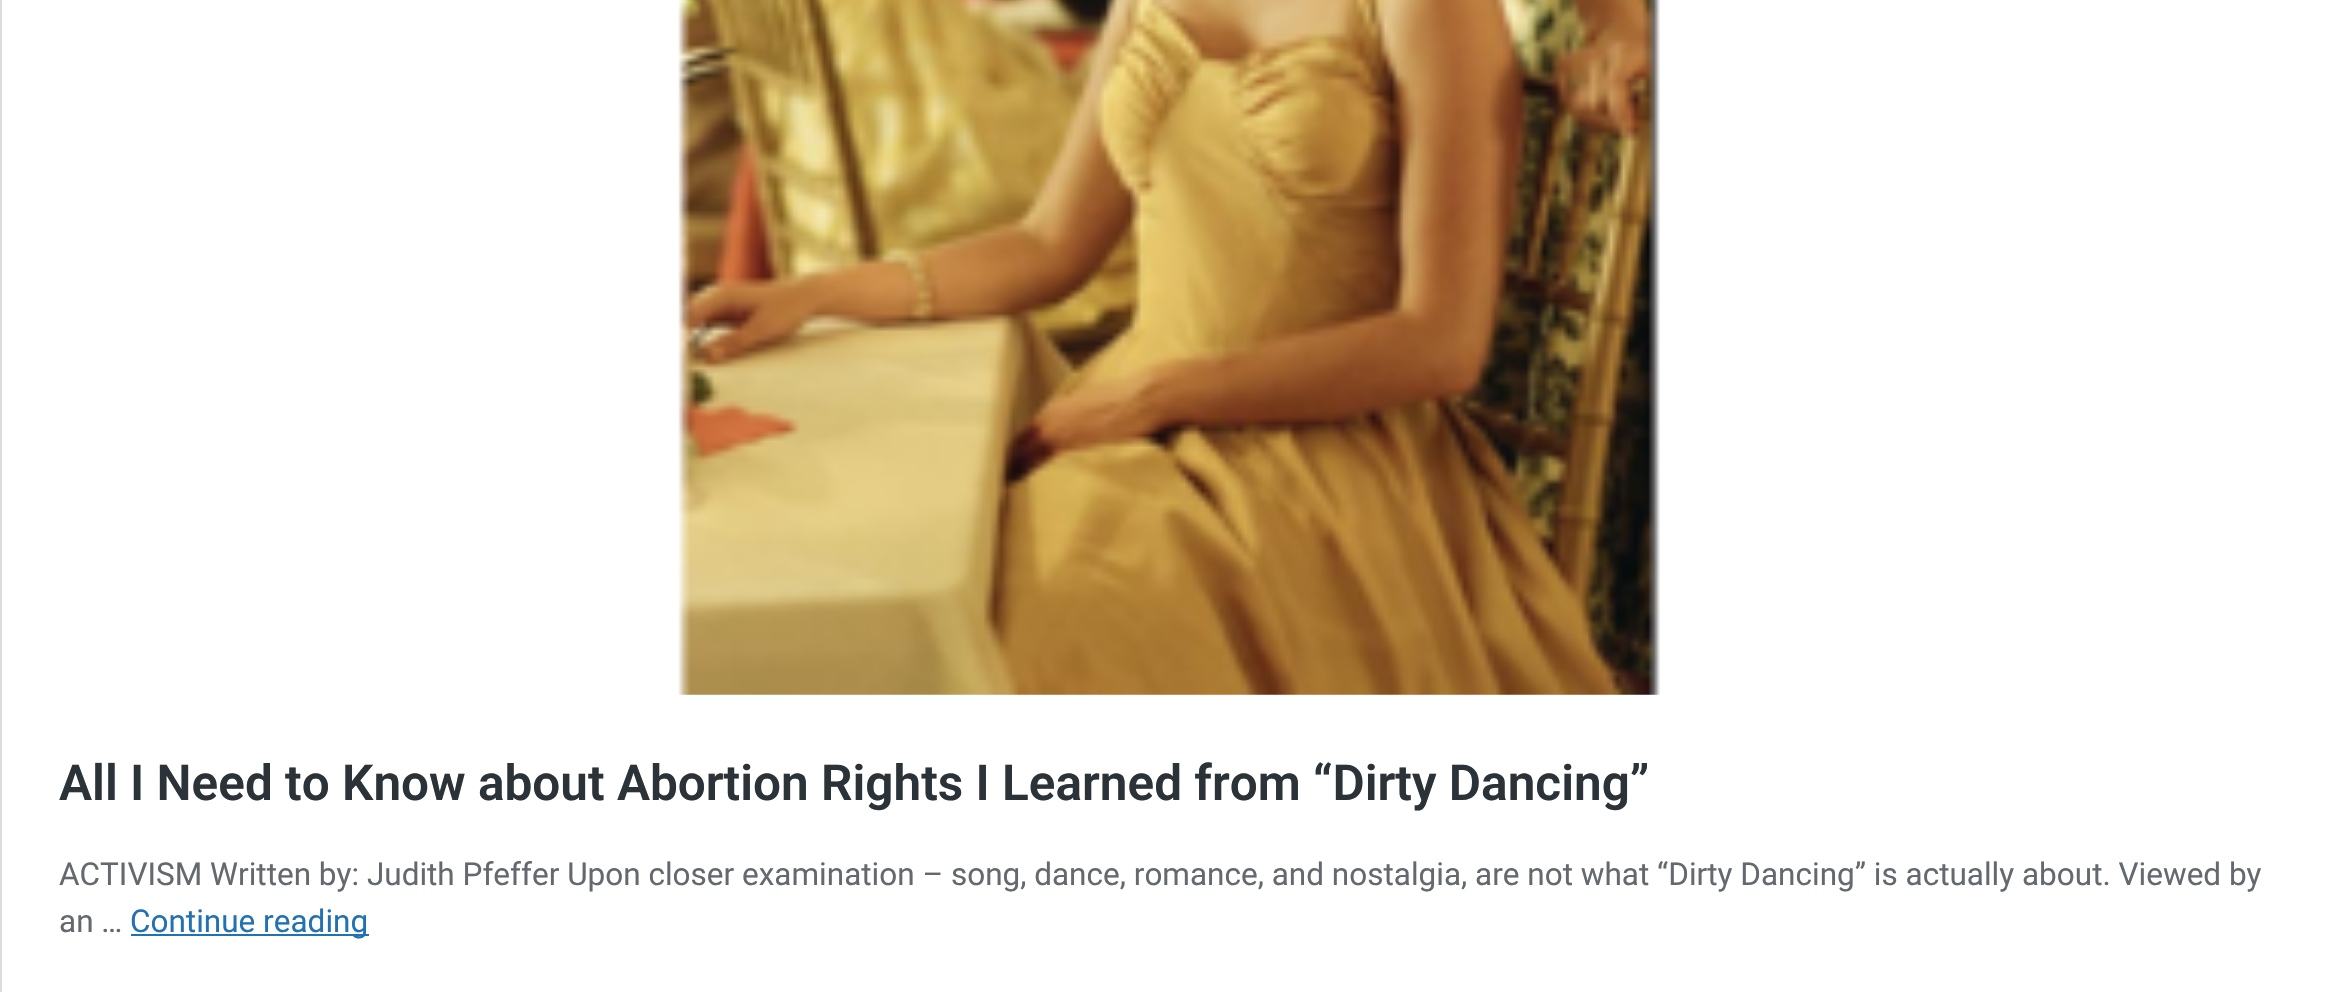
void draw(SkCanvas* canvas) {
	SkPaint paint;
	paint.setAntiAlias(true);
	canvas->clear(0xffffffff);
	paint.setStroke(true);
	paint.setStrokeWidth(2);
	paint.setColor(0xffdcdcde);
	canvas->drawRect(SkRect::MakeXYWH(1, -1, 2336, 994), paint);
	canvas->drawImageRect(SkImages::DeferredFromEncodedData(SkData::MakeFromFileName("img1.png")), SkRect::MakeXYWH(678, 0, 982, 695), SkSamplingOptions());
	SkFont f1(fontMgr->matchFamilyStyle("Roboto", SkFontStyle(600, SkFontStyle::kNormal_Width, SkFontStyle::kUpright_Slant)), 49.5);
	f1.setSubpixel(true);
	paint.setStroke(false);
	paint.setColor(0xff2c3338);
	canvas->drawString("All I Need to Know about Abortion Rights I Learned from “Dirty Dancing”", 59, 800, f1, paint);
	SkFont f2(fontMgr->matchFamilyStyle("Roboto", SkFontStyle::Normal()), 31.5);
	f2.setSubpixel(true);
	paint.setColor(0xff646970);
	canvas->drawString("ACTIVISM Written by: Judith Pfeffer Upon closer examination – song, dance, romance, and nostalgia, are not what “Dirty Dancing” is actually about. Viewed by", 59, 885, f2, paint);
	canvas->drawString("an …", 59, 932, f2, paint);
	paint.setColor(0xff2271b1);
	canvas->drawRect(SkRect::MakeXYWH(131, 934, 238, 2), paint);
	canvas->drawString("Continue reading", 130, 932, f2, paint);
}
